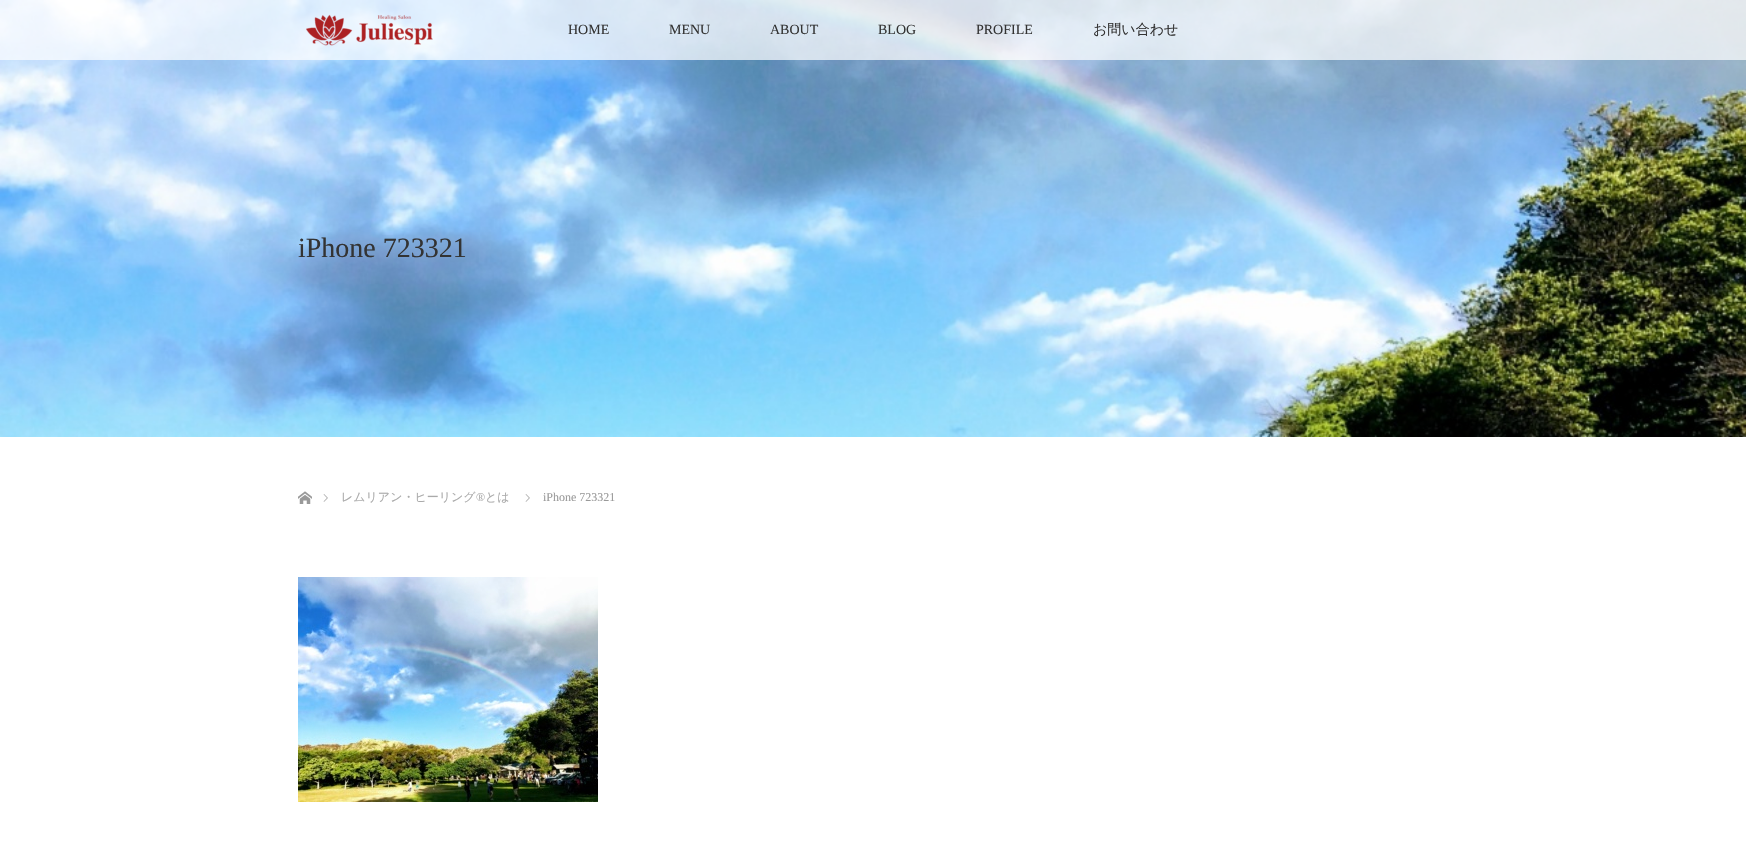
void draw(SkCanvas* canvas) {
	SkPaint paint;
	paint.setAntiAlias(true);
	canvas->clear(0xffffffff);
	canvas->drawImageRect(SkImages::DeferredFromEncodedData(SkData::MakeFromFileName("img2.png")), SkRect::MakeXYWH(0, 0, 1746, 437), SkSamplingOptions());
	paint.setColor(0xb3ffffff);
	canvas->drawRect(SkRect::MakeXYWH(0, 0, 1746, 60), paint);
	canvas->drawImageRect(SkImages::DeferredFromEncodedData(SkData::MakeFromFileName("img1.png")), SkRect::MakeXYWH(306, 14, 127, 32), SkSamplingOptions());
	SkFont f1(fontMgr->matchFamilyStyle("Liberation Serif", SkFontStyle::Normal()), 14);
	f1.setSubpixel(true);
	paint.setColor(0xff333333);
	canvas->drawString("HOME", 568, 34, f1, paint);
	canvas->drawString("MENU", 669, 34, f1, paint);
	canvas->drawString("ABOUT", 770, 34, f1, paint);
	canvas->drawString("BLOG", 878, 34, f1, paint);
	canvas->drawString("PROFILE", 976, 34, f1, paint);
	SkFont f2(fontMgr->matchFamilyStyle("WenQuanYi Zen Hei", SkFontStyle(500, SkFontStyle::kNormal_Width, SkFontStyle::kUpright_Slant)), 14);
	f2.setSubpixel(true);
	canvas->drawString("お問い合わせ", 1093, 34, f2, paint);
	SkFont f3(fontMgr->matchFamilyStyle("Liberation Serif", SkFontStyle::Normal()), 28);
	f3.setSubpixel(true);
	canvas->drawString("iPhone 723321", 298, 257, f3, paint);
	canvas->drawImageRect(SkImages::DeferredFromEncodedData(SkData::MakeFromFileName("img3.png")), SkRect::MakeXYWH(298, 491, 14, 13), SkSamplingOptions());
	canvas->drawImageRect(SkImages::DeferredFromEncodedData(SkData::MakeFromFileName("img4.png")), SkRect::MakeXYWH(323, 494, 5, 8), SkSamplingOptions());
	SkFont f4(fontMgr->matchFamilyStyle("WenQuanYi Zen Hei", SkFontStyle(500, SkFontStyle::kNormal_Width, SkFontStyle::kUpright_Slant)), 12);
	f4.setSubpixel(true);
	paint.setColor(0xffaaaaaa);
	canvas->drawString("レムリアン・ヒーリング", 341, 501, f4, paint);
	SkFont f5(fontMgr->matchFamilyStyle("Liberation Serif", SkFontStyle::Normal()), 12);
	f5.setSubpixel(true);
	canvas->drawString("®", 476, 501, f5, paint);
	canvas->drawString("とは", 485, 501, f4, paint);
	canvas->drawImageRect(SkImages::DeferredFromEncodedData(SkData::MakeFromFileName("img4.png")), SkRect::MakeXYWH(525, 494, 5, 8), SkSamplingOptions());
	paint.setColor(0xff999999);
	canvas->drawString("iPhone 723321", 543, 501, f5, paint);
	canvas->drawImageRect(SkImages::DeferredFromEncodedData(SkData::MakeFromFileName("img5.png")), SkRect::MakeXYWH(298, 577, 300, 225), SkSamplingOptions());
}
